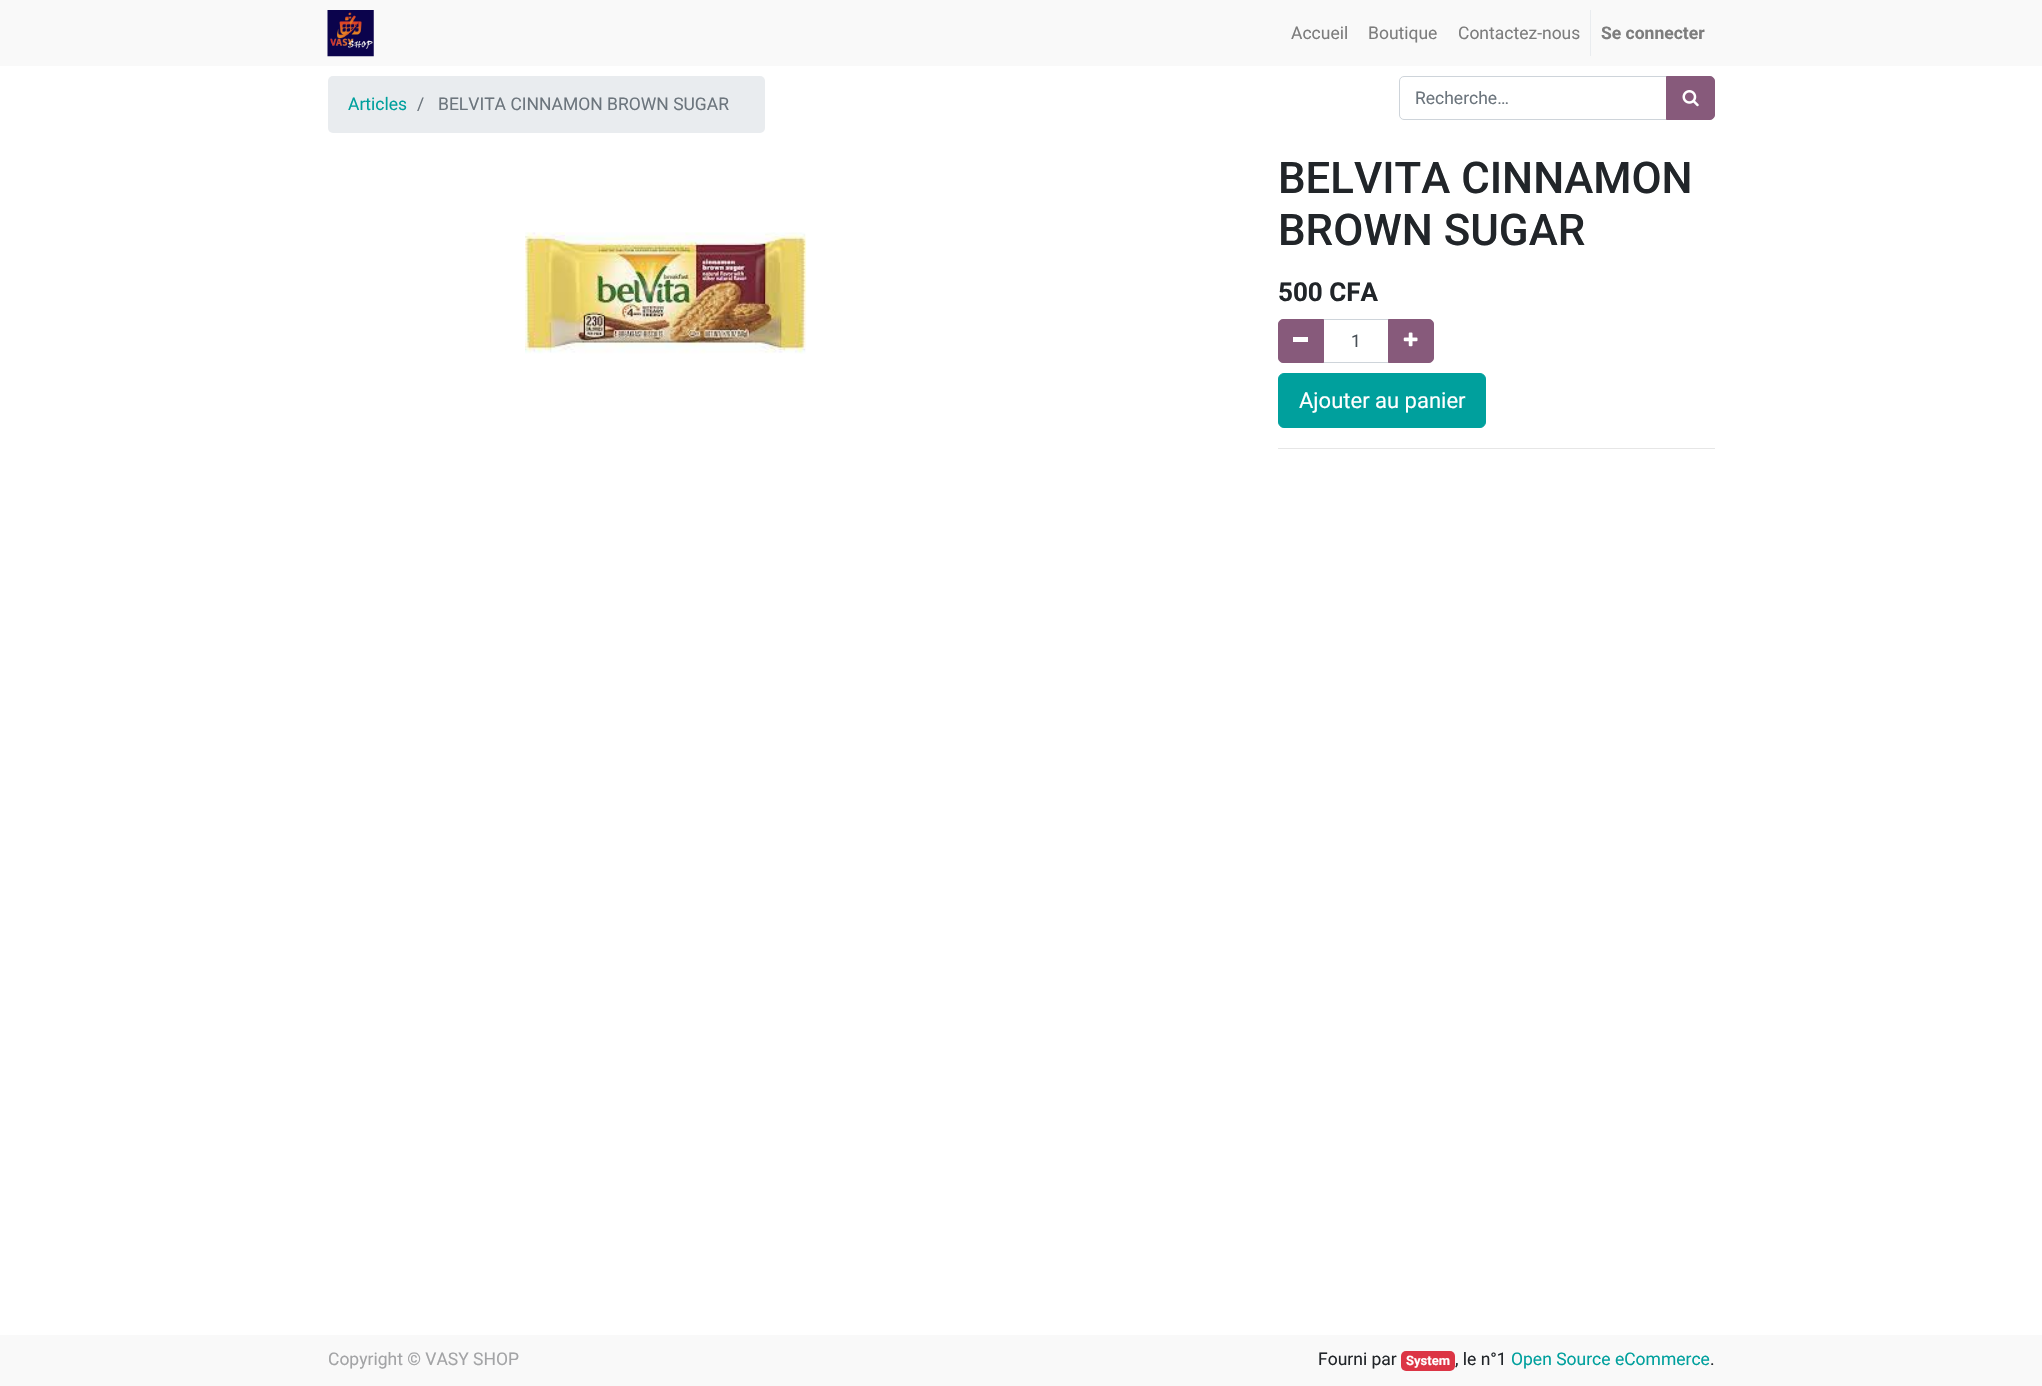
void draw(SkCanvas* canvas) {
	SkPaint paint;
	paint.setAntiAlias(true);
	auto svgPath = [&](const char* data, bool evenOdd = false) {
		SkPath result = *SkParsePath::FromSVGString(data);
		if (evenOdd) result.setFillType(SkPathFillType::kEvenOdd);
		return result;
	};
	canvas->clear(0xffffffff);
	paint.setColor(0xfff9f9f9);
	canvas->drawRect(SkRect::MakeXYWH(0, 0, 2042, 66), paint);
	canvas->drawImageRect(SkImages::DeferredFromEncodedData(SkData::MakeFromFileName("img1.png")), SkRect::MakeXYWH(327, 10, 47, 47), SkSamplingOptions());
	SkFont f1(fontMgr->matchFamilyStyle("Roboto", SkFontStyle::Normal()), 17.5);
	f1.setSubpixel(true);
	paint.setColor(0xff7d7d7d);
	canvas->drawString("Accueil", 1291, 39, f1, paint);
	canvas->drawString("Boutique", 1368, 39, f1, paint);
	canvas->drawString("Contactez-nous", 1458, 39, f1, paint);
	paint.setColor(0xffe9ecef);
	canvas->drawRect(SkRect::MakeXYWH(1590, 10, 1, 46), paint);
	SkFont f2(fontMgr->matchFamilyStyle("Roboto", SkFontStyle::Bold()), 17.5);
	f2.setSubpixel(true);
	paint.setColor(0xff7d7d7d);
	canvas->drawString("Se connecter", 1601, 39, f2, paint);
	paint.setColor(0xffe9ecef);
	canvas->drawRoundRect(SkRect::MakeXYWH(328, 76, 437, 57), 5, 5, paint);
	paint.setColor(0xff00a09d);
	canvas->drawString("Articles", 348, 110, f1, paint);
	paint.setColor(0xff6c757d);
	canvas->drawString("/", 417, 110, f1, paint);
	canvas->drawString("BELVITA CINNAMON BROWN SUGAR", 438, 110, f1, paint);
	paint.setStroke(true);
	paint.setStrokeWidth(1);
	paint.setColor(0xffced4da);
	canvas->drawPath(svgPath("M1404 76.5H1667.5V119.5H1404C1401.5 119.5 1399.5 117.5 1399.5 115V81C1399.5 78.5 1401.5 76.5 1404 76.5Z"), paint);
	paint.setStroke(false);
	paint.setColor(0xff6c757d);
	canvas->drawString("Recherche…", 1415, 104, f1, paint);
	paint.setColor(0xff875a7b);
	canvas->drawPath(svgPath("M1666.5 76.5H1710C1712.5 76.5 1714.5 78.5 1714.5 81V115C1714.5 117.5 1712.5 119.5 1710 119.5H1666.5Z"), paint);
	paint.setStroke(true);
	canvas->drawPath(svgPath("M1666.5 76.5H1710C1712.5 76.5 1714.5 78.5 1714.5 81V115C1714.5 117.5 1712.5 119.5 1710 119.5H1666.5Z"), paint);
	canvas->drawImageRect(SkImages::DeferredFromEncodedData(SkData::MakeFromFileName("img2.png")), SkRect::MakeXYWH(1682, 90, 17, 17), SkSamplingOptions());
	canvas->drawImageRect(SkImages::DeferredFromEncodedData(SkData::MakeFromFileName("img3.png")), SkRect::MakeXYWH(525, 232, 282, 122), SkSamplingOptions());
	SkFont f3(fontMgr->matchFamilyStyle("Roboto", SkFontStyle(500, SkFontStyle::kNormal_Width, SkFontStyle::kUpright_Slant)), 43.75);
	f3.setSubpixel(true);
	paint.setStroke(false);
	paint.setColor(0xff212529);
	canvas->drawString("BELVITA CINNAMON", 1278, 193, f3, paint);
	canvas->drawString("BROWN SUGAR", 1278, 245, f3, paint);
	SkFont f4(fontMgr->matchFamilyStyle("Roboto", SkFontStyle::Bold()), 26);
	f4.setSubpixel(true);
	canvas->drawString("500 CFA", 1278, 301, f4, paint);
	paint.setStroke(true);
	paint.setColor(0xffced4da);
	canvas->drawRect(SkRect::MakeXYWH(1323.5, 319.5, 65, 43), paint);
	paint.setStroke(false);
	paint.setColor(0xff875a7b);
	canvas->drawPath(svgPath("M1283 319.5H1323.5V362.5H1283C1280.5 362.5 1278.5 360.5 1278.5 358V324C1278.5 321.5 1280.5 319.5 1283 319.5Z"), paint);
	paint.setStroke(true);
	canvas->drawPath(svgPath("M1283 319.5H1323.5V362.5H1283C1280.5 362.5 1278.5 360.5 1278.5 358V324C1278.5 321.5 1280.5 319.5 1283 319.5Z"), paint);
	paint.setStroke(false);
	paint.setColor(0xffffffff);
	canvas->drawRect(SkRect::MakeXYWH(1293, 337, 15, 5), paint);
	paint.setColor(0xff495057);
	canvas->drawString("1", 1351, 347, f1, paint);
	paint.setColor(0xff875a7b);
	canvas->drawPath(svgPath("M1388.5 319.5H1429C1431.5 319.5 1433.5 321.5 1433.5 324V358C1433.5 360.5 1431.5 362.5 1429 362.5H1388.5Z"), paint);
	paint.setStroke(true);
	canvas->drawPath(svgPath("M1388.5 319.5H1429C1431.5 319.5 1433.5 321.5 1433.5 324V358C1433.5 360.5 1431.5 362.5 1429 362.5H1388.5Z"), paint);
	canvas->drawImageRect(SkImages::DeferredFromEncodedData(SkData::MakeFromFileName("img4.png")), SkRect::MakeXYWH(1403, 332, 15, 15), SkSamplingOptions());
	paint.setStroke(false);
	paint.setColor(0xff00a09d);
	canvas->drawRoundRect(SkRect::MakeXYWH(1278.5, 373.5, 207, 54), 5.5, 5.5, paint);
	paint.setStroke(true);
	canvas->drawRoundRect(SkRect::MakeXYWH(1278.5, 373.5, 207, 54), 5.5, 5.5, paint);
	SkFont f5(fontMgr->matchFamilyStyle("Roboto", SkFontStyle::Normal()), 22);
	f5.setSubpixel(true);
	paint.setStroke(false);
	paint.setColor(0xffffffff);
	canvas->drawString("Ajouter au panier", 1299, 408, f5, paint);
	paint.setColor(0xffe6e6e6);
	canvas->drawRect(SkRect::MakeXYWH(1278, 448, 437, 1), paint);
	paint.setColor(0xfff9f9f9);
	canvas->drawRect(SkRect::MakeXYWH(0, 1335, 2042, 51), paint);
	paint.setColor(0xffa3a4a6);
	canvas->drawString("Copyright © VASY SHOP", 328, 1365, f1, paint);
	paint.setColor(0xff212529);
	canvas->drawString("Fourni par", 1318, 1365, f1, paint);
	paint.setColor(0xffdc3545);
	canvas->drawRoundRect(SkRect::MakeXYWH(1401, 1351, 54, 20), 5, 5, paint);
	SkFont f6(fontMgr->matchFamilyStyle("Roboto", SkFontStyle::Bold()), 13);
	f6.setSubpixel(true);
	paint.setColor(0xffffffff);
	canvas->drawString("System", 1406, 1365, f6, paint);
	paint.setColor(0xff212529);
	canvas->drawString(", le n°1", 1455, 1365, f1, paint);
	paint.setColor(0xff00a09d);
	canvas->drawString("Open Source eCommerce", 1511, 1365, f1, paint);
	paint.setColor(0xff212529);
	canvas->drawString(".", 1710, 1365, f1, paint);
}
